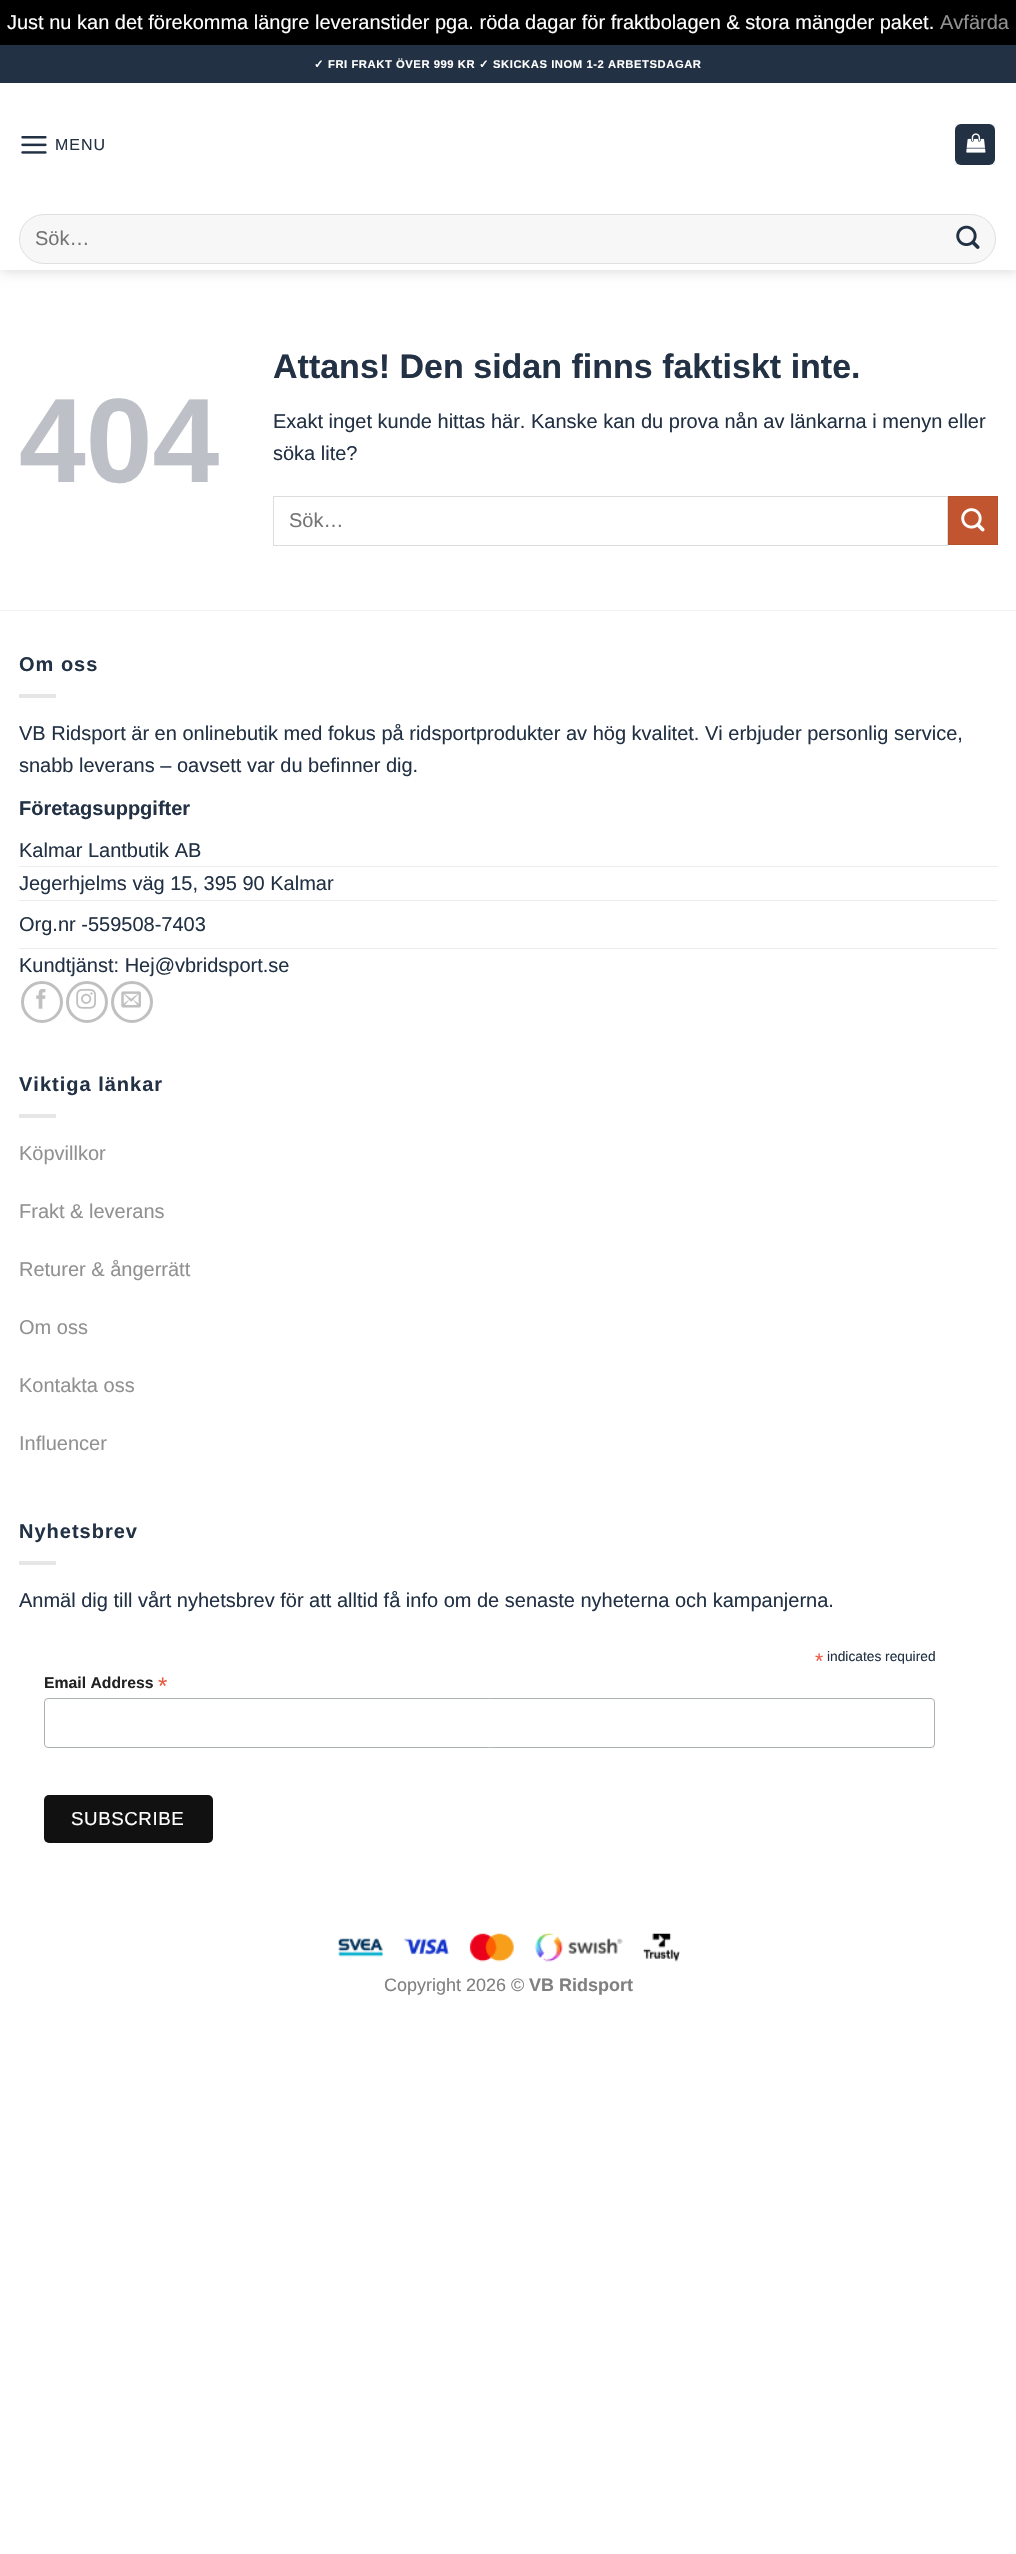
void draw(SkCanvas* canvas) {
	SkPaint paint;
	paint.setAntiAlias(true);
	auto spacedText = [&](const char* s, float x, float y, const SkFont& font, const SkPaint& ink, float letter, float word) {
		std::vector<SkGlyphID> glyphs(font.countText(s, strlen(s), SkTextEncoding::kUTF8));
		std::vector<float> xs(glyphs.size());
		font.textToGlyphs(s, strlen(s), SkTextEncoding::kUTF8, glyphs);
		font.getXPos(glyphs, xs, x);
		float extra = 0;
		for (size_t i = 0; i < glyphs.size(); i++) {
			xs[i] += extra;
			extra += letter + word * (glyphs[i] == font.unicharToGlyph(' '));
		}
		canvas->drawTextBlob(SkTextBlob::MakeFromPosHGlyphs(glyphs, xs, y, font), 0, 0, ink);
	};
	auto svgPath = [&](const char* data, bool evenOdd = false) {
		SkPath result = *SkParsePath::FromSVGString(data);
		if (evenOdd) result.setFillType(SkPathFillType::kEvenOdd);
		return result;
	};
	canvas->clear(0xffffffff);
	paint.setColor(0xff000000);
	canvas->drawRect(SkRect::MakeXYWH(0, 0, 1016, 45), paint);
	SkFont f1(fontMgr->matchFamilyStyle("Liberation Sans", SkFontStyle::Normal()), 20);
	f1.setSubpixel(true);
	paint.setColor(0xffffffff);
	canvas->drawString("Just nu kan det förekomma längre leveranstider pga. röda dagar för fraktbolagen & stora mängder paket.", 7, 29, f1, paint);
	paint.setColor(0xff919191);
	canvas->drawString("Avfärda", 940, 29, f1, paint);
	canvas->save();
	canvas->clipPath(svgPath("M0 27H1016V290H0ZM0 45H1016V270H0Z", true), true);
	paint.setColor(0x26000000);
	paint.setMaskFilter(SkMaskFilter::MakeBlur(kNormal_SkBlurStyle, 6));
	canvas->drawRect(SkRect::MakeXYWH(1, 46, 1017, 225), paint);
	paint.setMaskFilter(nullptr);
	canvas->restore();
	paint.setColor(0xff223144);
	canvas->drawRect(SkRect::MakeXYWH(0, 45, 1016, 38), paint);
	SkFont f2(fontMgr->matchFamilyStyle("DejaVu Sans", SkFontStyle::Bold()), 11.25);
	f2.setSubpixel(true);
	paint.setColor(0xffffffff);
	spacedText("✓", 314, 68, f2, paint, 0.55, 0);
	SkFont f3(fontMgr->matchFamilyStyle("Liberation Sans", SkFontStyle::Bold()), 11.25);
	f3.setSubpixel(true);
	spacedText("FRI FRAKT ÖVER 999 KR", 328, 68, f3, paint, 0.55, 0);
	spacedText("✓", 479, 68, f2, paint, 0.55, 0);
	spacedText("SKICKAS INOM 1-2 ARBETSDAGAR", 493, 68, f3, paint, 0.55, 0);
	canvas->drawImageRect(SkImages::DeferredFromEncodedData(SkData::MakeFromFileName("img1.png")), SkRect::MakeXYWH(21, 136, 26, 18), SkSamplingOptions());
	SkFont f4(fontMgr->matchFamilyStyle("Liberation Sans", SkFontStyle::Normal()), 16);
	f4.setSubpixel(true);
	paint.setColor(0xff223144);
	spacedText("MENU", 55, 150, f4, paint, 1, 0);
	canvas->drawRoundRect(SkRect::MakeXYWH(955, 124, 40, 41), 6, 6, paint);
	paint.setStroke(true);
	paint.setStrokeWidth(1);
	paint.setColor(0x0d000000);
	canvas->drawRect(SkRect::MakeXYWH(955.5, 124.5, 39, 40), paint);
	canvas->drawImageRect(SkImages::DeferredFromEncodedData(SkData::MakeFromFileName("img2.png")), SkRect::MakeXYWH(966, 133, 20, 20), SkSamplingOptions());
	paint.setStroke(false);
	paint.setColor(0xfff7f7f7);
	canvas->drawRoundRect(SkRect::MakeXYWH(19, 214, 977, 50), 25, 25, paint);
	paint.setStroke(true);
	paint.setColor(0x17000000);
	canvas->drawRoundRect(SkRect::MakeXYWH(19.5, 214.5, 976, 49), 24.5, 24.5, paint);
	paint.setStroke(false);
	paint.setColor(0xff757575);
	canvas->drawString("Sök…", 35, 245, f1, paint);
	canvas->drawImageRect(SkImages::DeferredFromEncodedData(SkData::MakeFromFileName("img3.png")), SkRect::MakeXYWH(956, 225, 24, 24), SkSamplingOptions());
	SkFont f5(fontMgr->matchFamilyStyle("Liberation Sans", SkFontStyle::Bold()), 120);
	f5.setSubpixel(true);
	paint.setColor(0xffbdc1c7);
	canvas->drawString("404", 19, 482, f5, paint);
	SkFont f6(fontMgr->matchFamilyStyle("Liberation Sans", SkFontStyle::Bold()), 34);
	f6.setSubpixel(true);
	paint.setColor(0xff223144);
	canvas->drawString("Attans! Den sidan finns faktiskt inte.", 273, 378, f6, paint);
	canvas->drawString("Exakt inget kunde hittas här. Kanske kan du prova nån av länkarna i menyn eller", 273, 428, f1, paint);
	canvas->drawString("söka lite?", 273, 460, f1, paint);
	paint.setStroke(true);
	paint.setColor(0xffdddddd);
	canvas->drawRect(SkRect::MakeXYWH(273.5, 496.5, 674, 49), paint);
	paint.setStroke(false);
	paint.setColor(0xff757575);
	canvas->drawString("Sök…", 289, 527, f1, paint);
	paint.setColor(0xffc05530);
	canvas->drawRect(SkRect::MakeXYWH(948.5, 496.5, 49, 48), paint);
	paint.setStroke(true);
	paint.setColor(0xffb6512e);
	canvas->drawRect(SkRect::MakeXYWH(948.5, 496.5, 49, 48), paint);
	canvas->drawImageRect(SkImages::DeferredFromEncodedData(SkData::MakeFromFileName("img4.png")), SkRect::MakeXYWH(961, 508, 24, 24), SkSamplingOptions());
	paint.setStroke(false);
	paint.setColor(0xfff2f2f2);
	canvas->drawRect(SkRect::MakeXYWH(0, 610, 1016, 1), paint);
	SkFont f7(fontMgr->matchFamilyStyle("Liberation Sans", SkFontStyle::Bold()), 20);
	f7.setSubpixel(true);
	paint.setColor(0xff223144);
	spacedText("Om oss", 19, 671, f7, paint, 1, 0);
	paint.setColor(0xffe6e6e6);
	canvas->drawRect(SkRect::MakeXYWH(19, 694, 37, 4), paint);
	paint.setColor(0xff223144);
	canvas->drawString("VB Ridsport är en onlinebutik med fokus på ridsportprodukter av hög kvalitet. Vi erbjuder personlig service,", 19, 740, f1, paint);
	canvas->drawString("snabb leverans – oavsett var du befinner dig.", 19, 772, f1, paint);
	canvas->drawString("Företagsuppgifter", 19, 815, f7, paint);
	canvas->drawString("Kalmar Lantbutik AB", 19, 857, f1, paint);
	paint.setColor(0xffececec);
	canvas->drawRect(SkRect::MakeXYWH(19, 866, 979, 1), paint);
	paint.setColor(0xff223144);
	canvas->drawString("Jegerhjelms väg 15, 395 90 Kalmar", 19, 890, f1, paint);
	paint.setColor(0xffececec);
	canvas->drawRect(SkRect::MakeXYWH(19, 900, 979, 1), paint);
	paint.setColor(0xff223144);
	canvas->drawString("Org.nr -559508-7403", 19, 931, f1, paint);
	paint.setColor(0xffececec);
	canvas->drawRect(SkRect::MakeXYWH(19, 948, 979, 1), paint);
	paint.setColor(0xff223144);
	canvas->drawString("Kundtjänst: Hej@vbridsport.se", 19, 972, f1, paint);
	paint.setStroke(true);
	paint.setStrokeWidth(3);
	paint.setColor(0xffc0c0c0);
	canvas->drawCircle(42, 1002, 19.5, paint);
	canvas->drawImageRect(SkImages::DeferredFromEncodedData(SkData::MakeFromFileName("img5.png")), SkRect::MakeXYWH(36, 988, 10, 21), SkSamplingOptions());
	canvas->drawCircle(87, 1002, 19.5, paint);
	canvas->drawImageRect(SkImages::DeferredFromEncodedData(SkData::MakeFromFileName("img6.png")), SkRect::MakeXYWH(76, 988, 20, 21), SkSamplingOptions());
	canvas->drawCircle(132, 1002, 19.5, paint);
	canvas->drawImageRect(SkImages::DeferredFromEncodedData(SkData::MakeFromFileName("img7.png")), SkRect::MakeXYWH(121, 991, 20, 17), SkSamplingOptions());
	paint.setStroke(false);
	paint.setColor(0xff223144);
	spacedText("Viktiga länkar", 19, 1091, f7, paint, 1, 0);
	paint.setColor(0xffe6e6e6);
	canvas->drawRect(SkRect::MakeXYWH(19, 1114, 37, 4), paint);
	paint.setColor(0xff919191);
	canvas->drawString("Köpvillkor", 19, 1160, f1, paint);
	canvas->drawString("Frakt & leverans", 19, 1218, f1, paint);
	canvas->drawString("Returer & ångerrätt", 19, 1276, f1, paint);
	canvas->drawString("Om oss", 19, 1334, f1, paint);
	canvas->drawString("Kontakta oss", 19, 1392, f1, paint);
	canvas->drawString("Influencer", 19, 1450, f1, paint);
	paint.setColor(0xff223144);
	spacedText("Nyhetsbrev", 19, 1538, f7, paint, 1, 0);
	paint.setColor(0xffe6e6e6);
	canvas->drawRect(SkRect::MakeXYWH(19, 1561, 37, 4), paint);
	paint.setColor(0xff223144);
	canvas->drawString("Anmäl dig till vårt nyhetsbrev för att alltid få info om de senaste nyheterna och kampanjerna.", 19, 1607, f1, paint);
	SkFont f8(fontMgr->matchFamilyStyle("Liberation Sans", SkFontStyle::Normal()), 21);
	f8.setSubpixel(true);
	paint.setColor(0xffe85c41);
	canvas->drawString("*", 815, 1668, f8, paint);
	SkFont f9(fontMgr->matchFamilyStyle("Liberation Sans", SkFontStyle::Normal()), 13.75);
	f9.setSubpixel(true);
	paint.setColor(0xff223144);
	canvas->drawString("indicates required", 827, 1661, f9, paint);
	SkFont f10(fontMgr->matchFamilyStyle("Liberation Sans", SkFontStyle::Bold()), 15.75);
	f10.setSubpixel(true);
	paint.setColor(0xff222222);
	canvas->drawString("Email Address", 44, 1688, f10, paint);
	SkFont f11(fontMgr->matchFamilyStyle("Liberation Sans", SkFontStyle::Normal()), 24);
	f11.setSubpixel(true);
	paint.setColor(0xffe85c41);
	canvas->drawString("*", 158, 1694, f11, paint);
	paint.setStroke(true);
	paint.setStrokeWidth(1);
	paint.setColor(0xffabb0b2);
	canvas->drawRoundRect(SkRect::MakeXYWH(44.5, 1698.5, 890, 49), 3.5, 3.5, paint);
	paint.setStroke(false);
	paint.setColor(0xff111111);
	canvas->drawRoundRect(SkRect::MakeXYWH(44, 1795, 169, 48), 5, 5, paint);
	SkFont f12(fontMgr->matchFamilyStyle("Liberation Sans", SkFontStyle::Normal()), 18.75);
	f12.setSubpixel(true);
	paint.setColor(0xffffffff);
	spacedText("SUBSCRIBE", 71, 1825, f12, paint, 0.55, 0);
	canvas->drawImageRect(SkImages::DeferredFromEncodedData(SkData::MakeFromFileName("img8.png")), SkRect::MakeXYWH(338, 1933, 342, 29), SkSamplingOptions());
	SkFont f13(fontMgr->matchFamilyStyle("Liberation Sans", SkFontStyle::Normal()), 18);
	f13.setSubpixel(true);
	paint.setColor(0xff808080);
	canvas->drawString("Copyright 2026 ©", 384, 1991, f13, paint);
	SkFont f14(fontMgr->matchFamilyStyle("Liberation Sans", SkFontStyle::Bold()), 18);
	f14.setSubpixel(true);
	canvas->drawString("VB Ridsport", 529, 1991, f14, paint);
}
